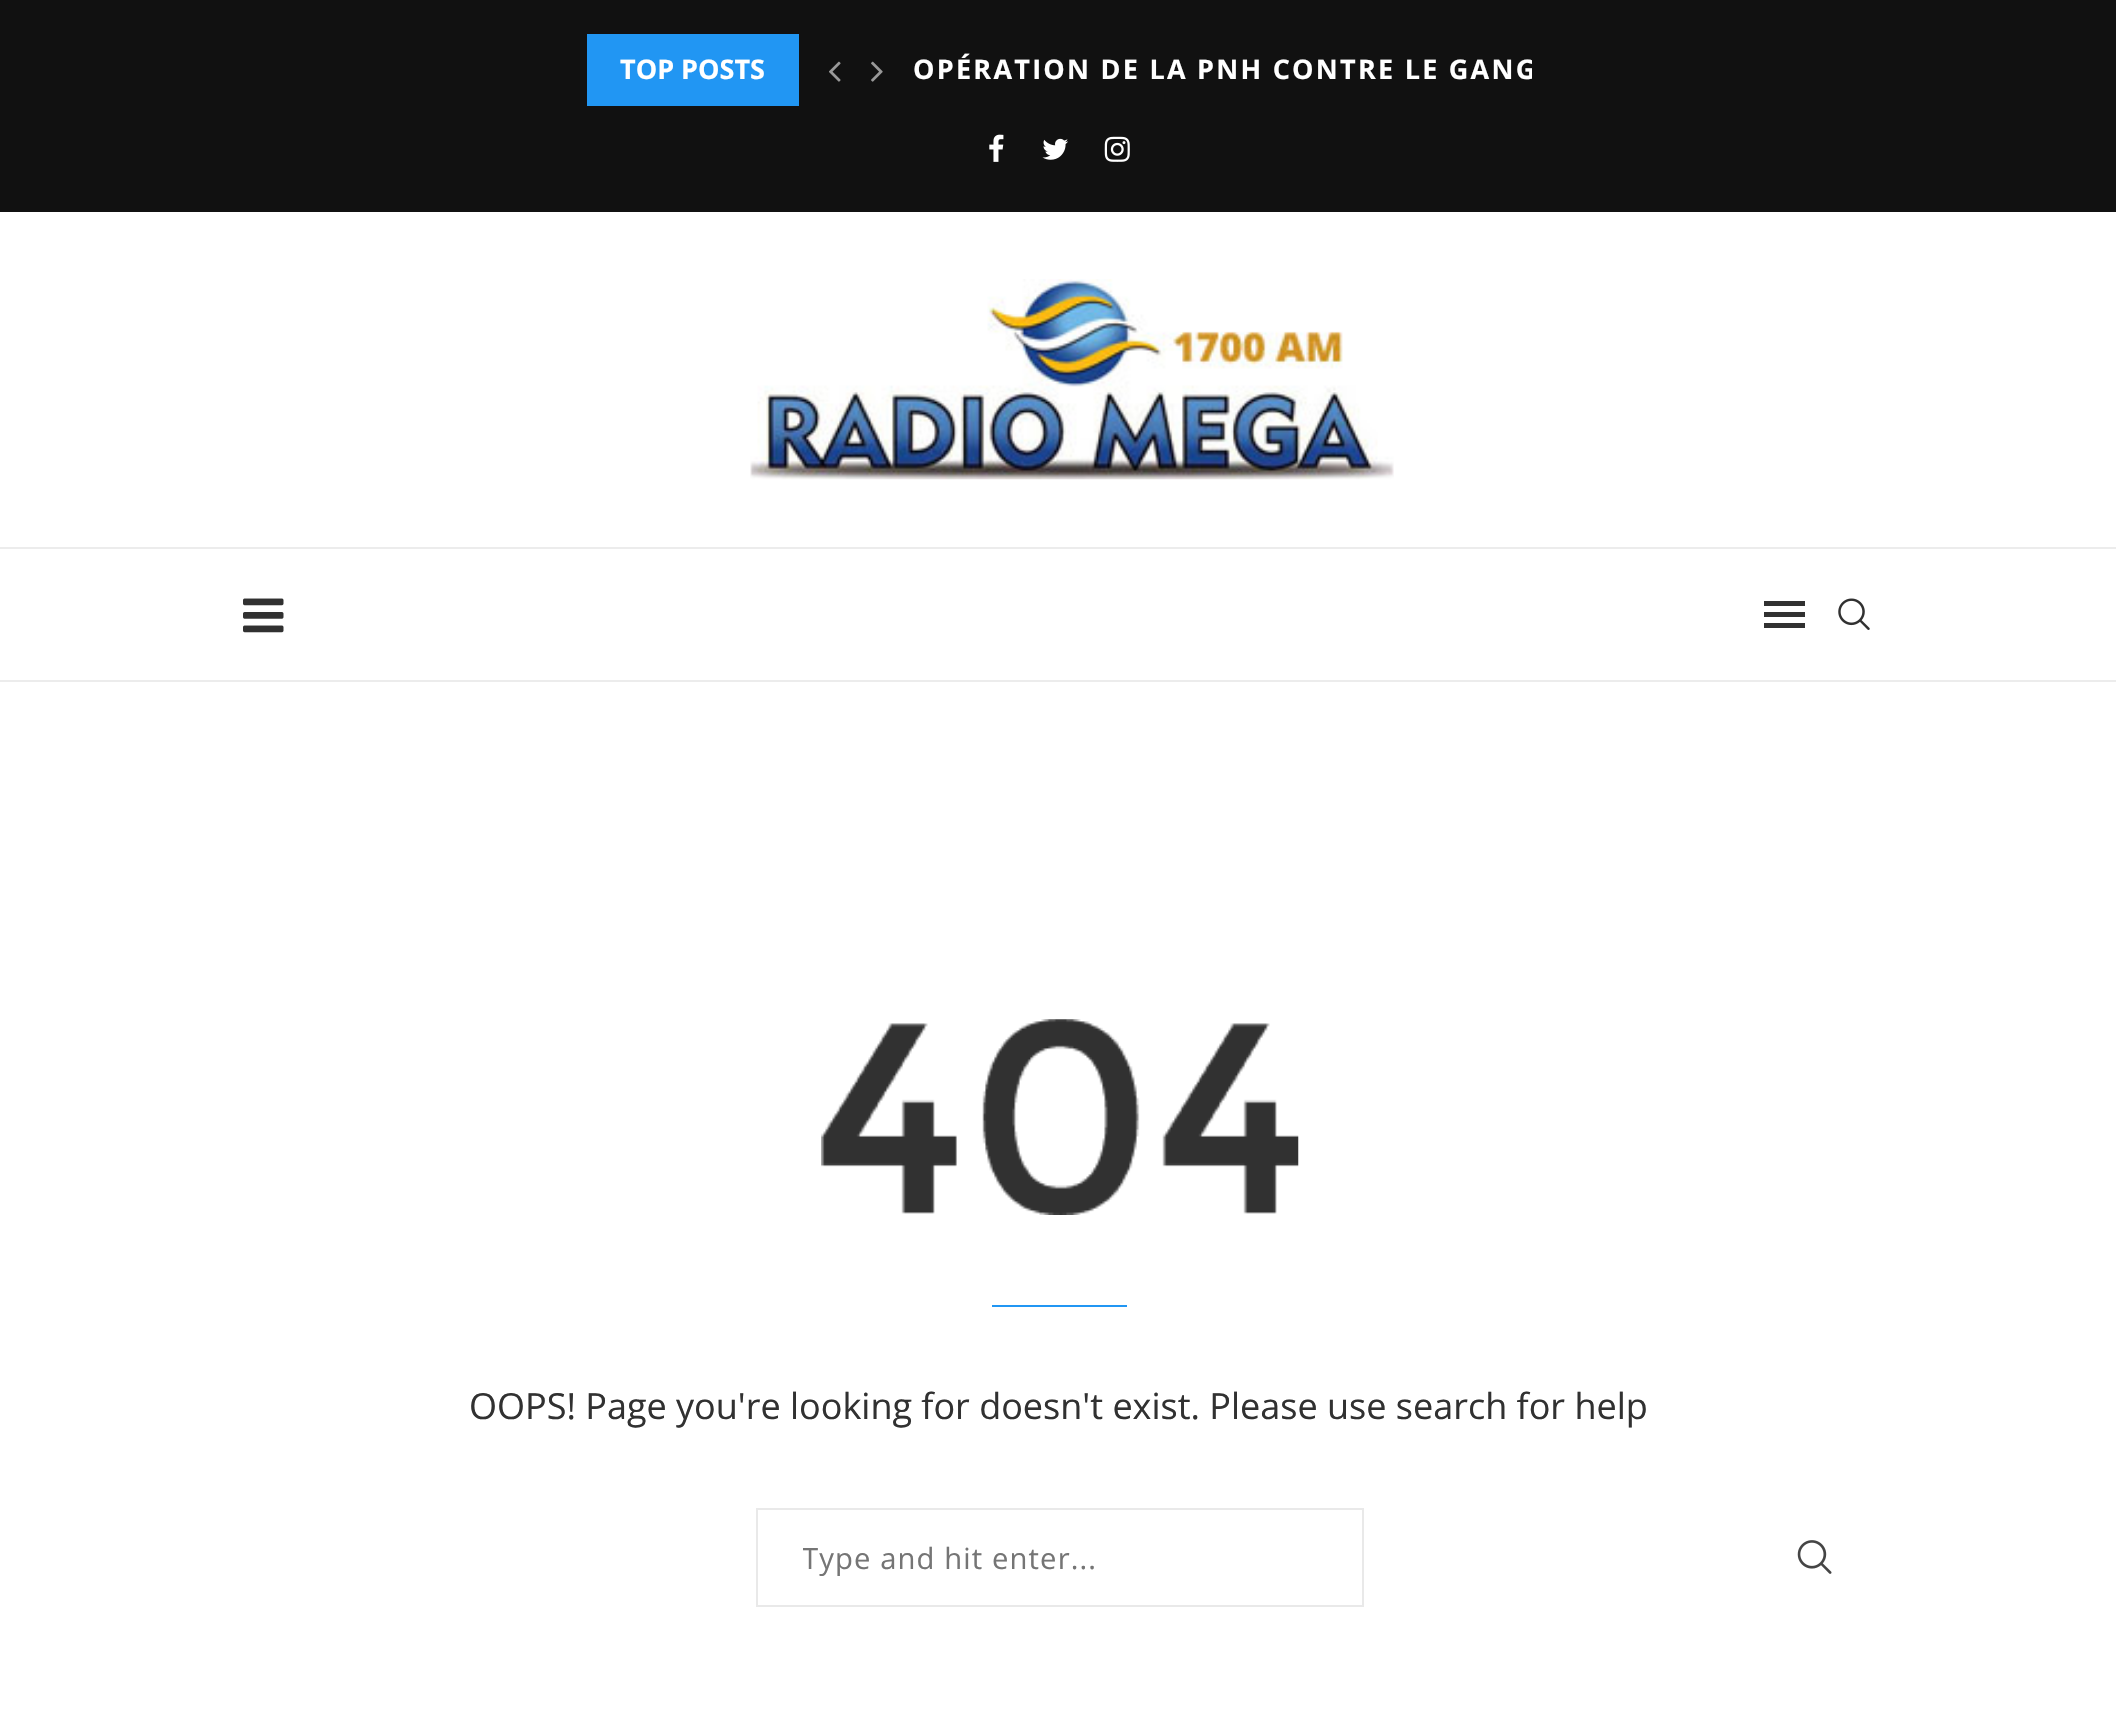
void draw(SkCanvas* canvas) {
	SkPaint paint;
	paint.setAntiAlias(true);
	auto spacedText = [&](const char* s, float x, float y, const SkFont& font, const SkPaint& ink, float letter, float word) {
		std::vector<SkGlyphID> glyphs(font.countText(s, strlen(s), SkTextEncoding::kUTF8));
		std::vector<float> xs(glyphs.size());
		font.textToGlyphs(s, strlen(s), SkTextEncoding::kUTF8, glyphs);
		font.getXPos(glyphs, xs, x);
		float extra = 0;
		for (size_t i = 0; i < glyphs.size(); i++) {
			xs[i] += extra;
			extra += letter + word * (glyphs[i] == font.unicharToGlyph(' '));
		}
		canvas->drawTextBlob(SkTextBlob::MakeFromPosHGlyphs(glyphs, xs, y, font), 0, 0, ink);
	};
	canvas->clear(0xffffffff);
	paint.setColor(0xff111111);
	canvas->drawRect(SkRect::MakeXYWH(0, 0, 2116, 212), paint);
	paint.setColor(0xff2196f3);
	canvas->drawRect(SkRect::MakeXYWH(587, 34, 212, 72), paint);
	SkFont f1(fontMgr->matchFamilyStyle("Open Sans", SkFontStyle::Bold()), 27);
	f1.setSubpixel(true);
	paint.setColor(0xffffffff);
	canvas->drawString("TOP POSTS", 620, 79, f1, paint);
	canvas->drawImageRect(SkImages::DeferredFromEncodedData(SkData::MakeFromFileName("img1.png")), SkRect::MakeXYWH(829, 61, 12, 21), SkSamplingOptions());
	canvas->drawImageRect(SkImages::DeferredFromEncodedData(SkData::MakeFromFileName("img2.png")), SkRect::MakeXYWH(871, 61, 12, 21), SkSamplingOptions());
	canvas->save();
	canvas->clipRect(SkRect::MakeXYWH(914, 34, 618, 72));
	spacedText("OPÉRATION DE LA PNH CONTRE LE GANG", 913, 79, f1, paint, 2.25, 0);
	canvas->restore();
	canvas->drawImageRect(SkImages::DeferredFromEncodedData(SkData::MakeFromFileName("img3.png")), SkRect::MakeXYWH(989, 134, 15, 28), SkSamplingOptions());
	canvas->drawImageRect(SkImages::DeferredFromEncodedData(SkData::MakeFromFileName("img4.png")), SkRect::MakeXYWH(1042, 138, 26, 22), SkSamplingOptions());
	canvas->drawImageRect(SkImages::DeferredFromEncodedData(SkData::MakeFromFileName("img5.png")), SkRect::MakeXYWH(1104, 136, 26, 26), SkSamplingOptions());
	canvas->drawImageRect(SkImages::DeferredFromEncodedData(SkData::MakeFromFileName("img6.png")), SkRect::MakeXYWH(750, 279, 644, 201), SkSamplingOptions());
	paint.setColor(0xffececec);
	canvas->drawRect(SkRect::MakeXYWH(0, 547, 2116, 2), paint);
	canvas->drawRect(SkRect::MakeXYWH(0, 680, 2116, 2), paint);
	canvas->drawImageRect(SkImages::DeferredFromEncodedData(SkData::MakeFromFileName("img7.png")), SkRect::MakeXYWH(243, 598, 41, 35), SkSamplingOptions());
	paint.setColor(0xff313131);
	canvas->drawRect(SkRect::MakeXYWH(1764, 601, 41, 5), paint);
	canvas->drawRect(SkRect::MakeXYWH(1764, 623, 41, 5), paint);
	canvas->drawRect(SkRect::MakeXYWH(1764, 612, 41, 5), paint);
	canvas->drawImageRect(SkImages::DeferredFromEncodedData(SkData::MakeFromFileName("img8.png")), SkRect::MakeXYWH(1838, 598, 32, 32), SkSamplingOptions());
	canvas->drawImageRect(SkImages::DeferredFromEncodedData(SkData::MakeFromFileName("img9.png")), SkRect::MakeXYWH(821, 1019, 478, 196), SkSamplingOptions());
	paint.setColor(0xff2196f3);
	canvas->drawRect(SkRect::MakeXYWH(992, 1305, 135, 2), paint);
	SkFont f2(fontMgr->matchFamilyStyle("Open Sans", SkFontStyle::Normal()), 36);
	f2.setSubpixel(true);
	paint.setColor(0xff313131);
	canvas->drawString("OOPS! Page you're looking for doesn't exist. Please use search for help", 469, 1419, f2, paint);
	paint.setStroke(true);
	paint.setStrokeWidth(2);
	paint.setColor(0xffe9e9e9);
	canvas->drawRect(SkRect::MakeXYWH(757, 1509, 606, 97), paint);
	canvas->save();
	canvas->clipRect(SkRect::MakeXYWH(803, 1537, 468, 40));
	SkFont f3(fontMgr->matchFamilyStyle("Open Sans", SkFontStyle::Normal()), 29.25);
	f3.setSubpixel(true);
	paint.setStroke(false);
	paint.setColor(0xff757575);
	spacedText("Type and hit enter...", 802, 1569, f3, paint, 1.1, 0);
	canvas->restore();
	canvas->drawImageRect(SkImages::DeferredFromEncodedData(SkData::MakeFromFileName("img10.png")), SkRect::MakeXYWH(1797, 1540, 35, 34), SkSamplingOptions());
}
